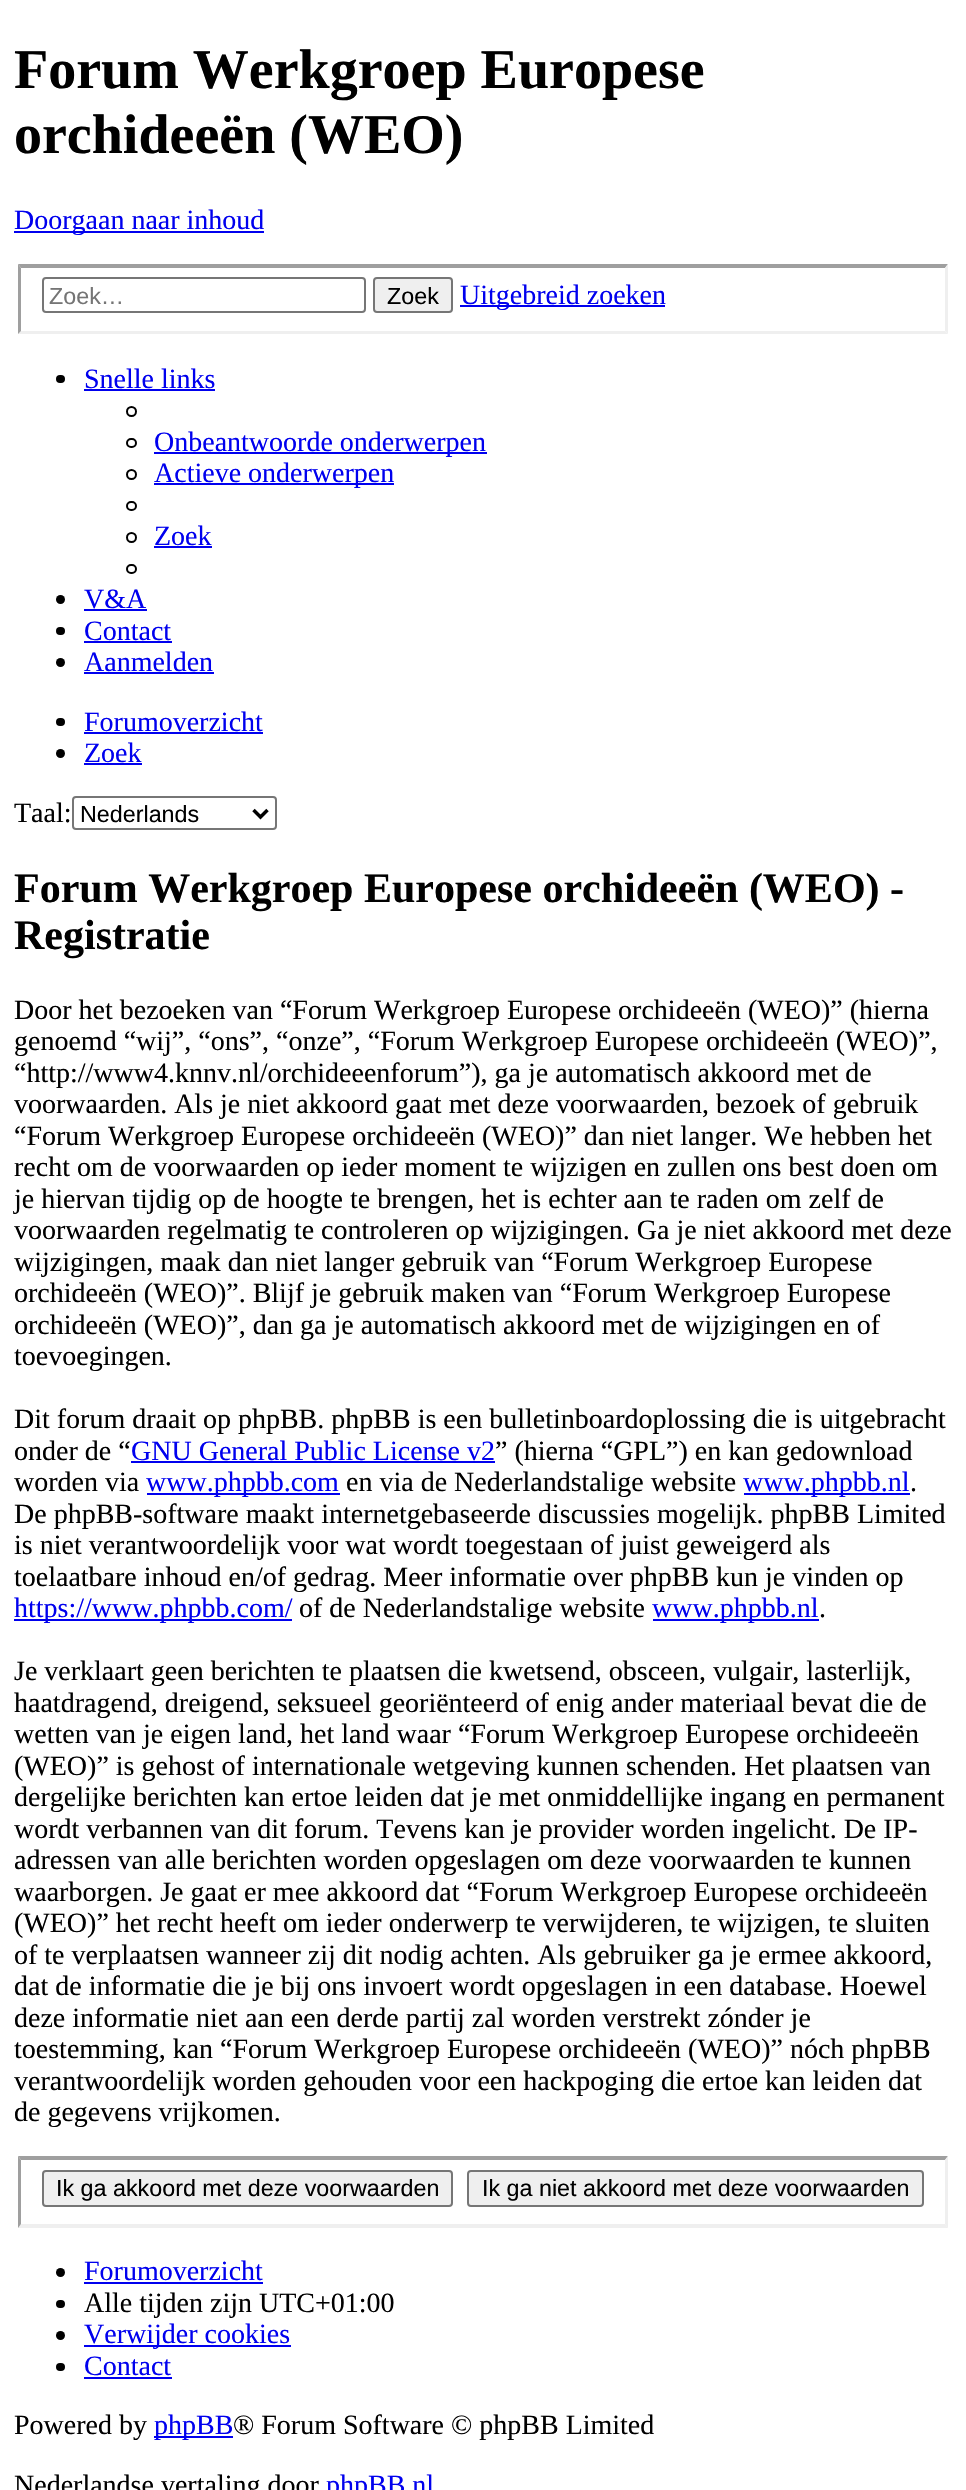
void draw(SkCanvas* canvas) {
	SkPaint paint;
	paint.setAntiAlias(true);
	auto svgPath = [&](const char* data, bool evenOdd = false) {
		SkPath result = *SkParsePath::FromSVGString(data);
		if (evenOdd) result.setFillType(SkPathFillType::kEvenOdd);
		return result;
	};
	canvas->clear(0xffffffff);
	SkFont f1(fontMgr->matchFamilyStyle("Liberation Serif", SkFontStyle::Bold()), 56);
	f1.setSubpixel(true);
	paint.setColor(0xff000000);
	canvas->drawString("Forum Werkgroep Europese", 14, 88, f1, paint);
	canvas->drawString("orchideeën (WEO)", 14, 153, f1, paint);
	paint.setColor(0xff0000ee);
	canvas->drawRect(SkRect::MakeXYWH(14, 231, 250, 2), paint);
	SkFont f2(fontMgr->matchFamilyStyle("Liberation Serif", SkFontStyle::Normal()), 28);
	f2.setSubpixel(true);
	canvas->drawString("Doorgaan naar inhoud", 14, 229, f2, paint);
	paint.setColor(0xff9f9f9f);
	canvas->drawPath(svgPath("M18 264H948L945 268H21Z"), paint);
	paint.setColor(0xffefefef);
	canvas->drawPath(svgPath("M948 264V334L945 331V268Z"), paint);
	canvas->drawPath(svgPath("M948 334H18L21 331H945Z"), paint);
	paint.setColor(0xff9f9f9f);
	canvas->drawPath(svgPath("M18 334V264L21 268V331Z"), paint);
	paint.setStroke(true);
	paint.setStrokeWidth(2);
	paint.setColor(0xff767676);
	canvas->drawRoundRect(SkRect::MakeXYWH(43, 278, 322, 34), 3, 3, paint);
	SkFont f3(fontMgr->matchFamilyStyle("Liberation Sans", SkFontStyle::Normal()), 23.3);
	f3.setSubpixel(true);
	paint.setStroke(false);
	paint.setColor(0xff757575);
	canvas->drawString("Zoek…", 49, 304, f3, paint);
	paint.setColor(0xffefefef);
	canvas->drawRoundRect(SkRect::MakeXYWH(374, 278, 78, 34), 3, 3, paint);
	paint.setStroke(true);
	paint.setColor(0xff767676);
	canvas->drawRoundRect(SkRect::MakeXYWH(374, 278, 78, 34), 3, 3, paint);
	paint.setStroke(false);
	paint.setColor(0xff000000);
	canvas->drawString("Zoek", 387, 304, f3, paint);
	paint.setColor(0xff0000ee);
	canvas->drawRect(SkRect::MakeXYWH(460, 305, 205, 2), paint);
	canvas->drawString("Uitgebreid zoeken", 460, 304, f2, paint);
	paint.setColor(0xff000000);
	canvas->drawRoundRect(SkRect::MakeXYWH(56, 375, 9, 8), 4, 4, paint);
	paint.setColor(0xff0000ee);
	canvas->drawString("Snelle links", 84, 388, f2, paint);
	canvas->drawRect(SkRect::MakeXYWH(84, 389, 131, 2), paint);
	paint.setStroke(true);
	paint.setColor(0xff000000);
	canvas->drawCircle(131.5, 411.5, 4.5, paint);
	canvas->drawRoundRect(SkRect::MakeXYWH(127, 439, 9, 8), 4, 4, paint);
	paint.setStroke(false);
	paint.setColor(0xff0000ee);
	canvas->drawRect(SkRect::MakeXYWH(154, 452, 333, 2), paint);
	canvas->drawString("Onbeantwoorde onderwerpen", 154, 451, f2, paint);
	paint.setStroke(true);
	paint.setColor(0xff000000);
	canvas->drawCircle(131.5, 474.5, 4.5, paint);
	paint.setStroke(false);
	paint.setColor(0xff0000ee);
	canvas->drawRect(SkRect::MakeXYWH(154, 483, 240, 2), paint);
	canvas->drawString("Actieve onderwerpen", 154, 482, f2, paint);
	paint.setStroke(true);
	paint.setColor(0xff000000);
	canvas->drawRoundRect(SkRect::MakeXYWH(127, 502, 9, 8), 4, 4, paint);
	canvas->drawCircle(131.5, 537.5, 4.5, paint);
	paint.setStroke(false);
	paint.setColor(0xff0000ee);
	canvas->drawString("Zoek", 154, 545, f2, paint);
	canvas->drawRect(SkRect::MakeXYWH(154, 546, 58, 2), paint);
	paint.setStroke(true);
	paint.setColor(0xff000000);
	canvas->drawRoundRect(SkRect::MakeXYWH(127, 565, 9, 8), 4, 4, paint);
	paint.setStroke(false);
	canvas->drawCircle(60.5, 599.5, 4.5, paint);
	paint.setColor(0xff0000ee);
	canvas->drawString("V&A", 84, 608, f2, paint);
	canvas->drawRect(SkRect::MakeXYWH(84, 609, 63, 2), paint);
	paint.setColor(0xff000000);
	canvas->drawRoundRect(SkRect::MakeXYWH(56, 627, 9, 8), 4, 4, paint);
	paint.setColor(0xff0000ee);
	canvas->drawString("Contact", 84, 640, f2, paint);
	canvas->drawRect(SkRect::MakeXYWH(84, 641, 88, 2), paint);
	paint.setColor(0xff000000);
	canvas->drawCircle(60.5, 662.5, 4.5, paint);
	paint.setColor(0xff0000ee);
	canvas->drawString("Aanmelden", 84, 671, f2, paint);
	canvas->drawRect(SkRect::MakeXYWH(84, 672, 130, 2), paint);
	paint.setColor(0xff000000);
	canvas->drawRoundRect(SkRect::MakeXYWH(56, 718, 9, 8), 4, 4, paint);
	paint.setColor(0xff0000ee);
	canvas->drawString("Forumoverzicht", 84, 731, f2, paint);
	canvas->drawRect(SkRect::MakeXYWH(84, 732, 179, 2), paint);
	paint.setColor(0xff000000);
	canvas->drawCircle(60.5, 753.5, 4.5, paint);
	paint.setColor(0xff0000ee);
	canvas->drawString("Zoek", 84, 762, f2, paint);
	canvas->drawRect(SkRect::MakeXYWH(84, 763, 58, 2), paint);
	paint.setColor(0xff000000);
	canvas->drawString("Taal:", 14, 822, f2, paint);
	paint.setStroke(true);
	paint.setColor(0xff767676);
	canvas->drawRoundRect(SkRect::MakeXYWH(73, 797, 203, 32), 3, 3, paint);
	paint.setStrokeWidth(3.5);
	paint.setColor(0xff000000);
	canvas->drawPath(svgPath("M253.5 810L260.5 817L267.5 810"), paint);
	paint.setStroke(false);
	canvas->drawString("Nederlands", 80, 822, f3, paint);
	SkFont f4(fontMgr->matchFamilyStyle("Liberation Serif", SkFontStyle::Bold()), 42);
	f4.setSubpixel(true);
	canvas->drawString("Forum Werkgroep Europese orchideeën (WEO) -", 14, 902, f4, paint);
	canvas->drawString("Registratie", 14, 949, f4, paint);
	canvas->drawString("Door het bezoeken van “Forum Werkgroep Europese orchideeën (WEO)” (hierna", 14, 1019, f2, paint);
	canvas->drawString("genoemd “wij”, “ons”, “onze”, “Forum Werkgroep Europese orchideeën (WEO)”,", 14, 1050, f2, paint);
	canvas->drawString("“http://www4.knnv.nl/orchideeenforum”), ga je automatisch akkoord met de", 14, 1082, f2, paint);
	canvas->drawString("voorwaarden. Als je niet akkoord gaat met deze voorwaarden, bezoek of gebruik", 14, 1113, f2, paint);
	canvas->drawString("“Forum Werkgroep Europese orchideeën (WEO)” dan niet langer. We hebben het", 14, 1145, f2, paint);
	canvas->drawString("recht om de voorwaarden op ieder moment te wijzigen en zullen ons best doen om", 14, 1176, f2, paint);
	canvas->drawString("je hiervan tijdig op de hoogte te brengen, het is echter aan te raden om zelf de", 14, 1208, f2, paint);
	canvas->drawString("voorwaarden regelmatig te controleren op wijzigingen. Ga je niet akkoord met deze", 14, 1239, f2, paint);
	canvas->drawString("wijzigingen, maak dan niet langer gebruik van “Forum Werkgroep Europese", 14, 1271, f2, paint);
	canvas->drawString("orchideeën (WEO)”. Blijf je gebruik maken van “Forum Werkgroep Europese", 14, 1302, f2, paint);
	canvas->drawString("orchideeën (WEO)”, dan ga je automatisch akkoord met de wijzigingen en of", 14, 1334, f2, paint);
	canvas->drawString("toevoegingen.", 14, 1365, f2, paint);
	canvas->drawString("Dit forum draait op phpBB. phpBB is een bulletinboardoplossing die is uitgebracht", 14, 1428, f2, paint);
	canvas->drawString("onder de “", 14, 1460, f2, paint);
	paint.setColor(0xff0000ee);
	canvas->drawString("GNU General Public License v2", 131, 1460, f2, paint);
	canvas->drawRect(SkRect::MakeXYWH(131, 1461, 364, 2), paint);
	paint.setColor(0xff000000);
	canvas->drawString("” (hierna “GPL”) en kan gedownload", 495, 1460, f2, paint);
	canvas->drawString("worden via", 14, 1491, f2, paint);
	paint.setColor(0xff0000ee);
	canvas->drawRect(SkRect::MakeXYWH(147, 1493, 193, 2), paint);
	canvas->drawString("www.phpbb.com", 146, 1491, f2, paint);
	paint.setColor(0xff000000);
	canvas->drawString("en via de Nederlandstalige website", 346, 1491, f2, paint);
	paint.setColor(0xff0000ee);
	canvas->drawRect(SkRect::MakeXYWH(744, 1493, 166, 2), paint);
	canvas->drawString("www.phpbb.nl", 743, 1491, f2, paint);
	paint.setColor(0xff000000);
	canvas->drawString(".", 910, 1491, f2, paint);
	canvas->drawString("De phpBB-software maakt internetgebaseerde discussies mogelijk. phpBB Limited", 14, 1523, f2, paint);
	canvas->drawString("is niet verantwoordelijk voor wat wordt toegestaan of juist geweigerd als", 14, 1554, f2, paint);
	canvas->drawString("toelaatbare inhoud en/of gedrag. Meer informatie over phpBB kun je vinden op", 14, 1586, f2, paint);
	paint.setColor(0xff0000ee);
	canvas->drawRect(SkRect::MakeXYWH(14, 1619, 278, 2), paint);
	canvas->drawString("https://www.phpbb.com/", 14, 1617, f2, paint);
	paint.setColor(0xff000000);
	canvas->drawString("of de Nederlandstalige website", 299, 1617, f2, paint);
	paint.setColor(0xff0000ee);
	canvas->drawRect(SkRect::MakeXYWH(653, 1619, 166, 2), paint);
	canvas->drawString("www.phpbb.nl", 652, 1617, f2, paint);
	paint.setColor(0xff000000);
	canvas->drawString(".", 819, 1617, f2, paint);
	canvas->drawString("Je verklaart geen berichten te plaatsen die kwetsend, obsceen, vulgair, lasterlijk,", 14, 1680, f2, paint);
	canvas->drawString("haatdragend, dreigend, seksueel georiënteerd of enig ander materiaal bevat die de", 14, 1712, f2, paint);
	canvas->drawString("wetten van je eigen land, het land waar “Forum Werkgroep Europese orchideeën", 14, 1743, f2, paint);
	canvas->drawString("(WEO)” is gehost of internationale wetgeving kunnen schenden. Het plaatsen van", 14, 1775, f2, paint);
	canvas->drawString("dergelijke berichten kan ertoe leiden dat je met onmiddellijke ingang en permanent", 14, 1806, f2, paint);
	canvas->drawString("wordt verbannen van dit forum. Tevens kan je provider worden ingelicht. De IP-", 14, 1838, f2, paint);
	canvas->drawString("adressen van alle berichten worden opgeslagen om deze voorwaarden te kunnen", 14, 1869, f2, paint);
	canvas->drawString("waarborgen. Je gaat er mee akkoord dat “Forum Werkgroep Europese orchideeën", 14, 1901, f2, paint);
	canvas->drawString("(WEO)” het recht heeft om ieder onderwerp te verwijderen, te wijzigen, te sluiten", 14, 1932, f2, paint);
	canvas->drawString("of te verplaatsen wanneer zij dit nodig achten. Als gebruiker ga je ermee akkoord,", 14, 1964, f2, paint);
	canvas->drawString("dat de informatie die je bij ons invoert wordt opgeslagen in een database. Hoewel", 14, 1995, f2, paint);
	canvas->drawString("deze informatie niet aan een derde partij zal worden verstrekt zónder je", 14, 2027, f2, paint);
	canvas->drawString("toestemming, kan “Forum Werkgroep Europese orchideeën (WEO)” nóch phpBB", 14, 2058, f2, paint);
	canvas->drawString("verantwoordelijk worden gehouden voor een hackpoging die ertoe kan leiden dat", 14, 2090, f2, paint);
	canvas->drawString("de gegevens vrijkomen.", 14, 2121, f2, paint);
	paint.setColor(0xff9f9f9f);
	canvas->drawPath(svgPath("M18 2156H948L945 2160H21Z"), paint);
	paint.setColor(0xffefefef);
	canvas->drawPath(svgPath("M948 2156V2228L945 2224V2160Z"), paint);
	canvas->drawPath(svgPath("M948 2228H18L21 2224H945Z"), paint);
	paint.setColor(0xff9f9f9f);
	canvas->drawPath(svgPath("M18 2228V2156L21 2160V2224Z"), paint);
	paint.setColor(0xffefefef);
	canvas->drawRoundRect(SkRect::MakeXYWH(43, 2171, 409, 35), 3, 3, paint);
	paint.setStroke(true);
	paint.setStrokeWidth(2);
	paint.setColor(0xff767676);
	canvas->drawRoundRect(SkRect::MakeXYWH(43, 2171, 409, 35), 3, 3, paint);
	paint.setStroke(false);
	paint.setColor(0xff000000);
	canvas->drawString("Ik ga akkoord met deze voorwaarden", 56, 2196, f3, paint);
	paint.setColor(0xffefefef);
	canvas->drawRoundRect(SkRect::MakeXYWH(468, 2171, 455, 35), 3, 3, paint);
	paint.setStroke(true);
	paint.setColor(0xff767676);
	canvas->drawRoundRect(SkRect::MakeXYWH(468, 2171, 455, 35), 3, 3, paint);
	paint.setStroke(false);
	paint.setColor(0xff000000);
	canvas->drawString("Ik ga niet akkoord met deze voorwaarden", 482, 2196, f3, paint);
	canvas->drawCircle(60.5, 2272.5, 4.5, paint);
	paint.setColor(0xff0000ee);
	canvas->drawString("Forumoverzicht", 84, 2280, f2, paint);
	canvas->drawRect(SkRect::MakeXYWH(84, 2282, 179, 2), paint);
	paint.setColor(0xff000000);
	canvas->drawRoundRect(SkRect::MakeXYWH(56, 2300, 9, 8), 4, 4, paint);
	canvas->drawString("Alle tijden zijn UTC+01:00", 84, 2312, f2, paint);
	canvas->drawCircle(60.5, 2335.5, 4.5, paint);
	paint.setColor(0xff0000ee);
	canvas->drawRect(SkRect::MakeXYWH(84, 2345, 207, 2), paint);
	canvas->drawString("Verwijder cookies", 84, 2343, f2, paint);
	paint.setColor(0xff000000);
	canvas->drawRoundRect(SkRect::MakeXYWH(56, 2363, 9, 8), 4, 4, paint);
	paint.setColor(0xff0000ee);
	canvas->drawString("Contact", 84, 2375, f2, paint);
	canvas->drawRect(SkRect::MakeXYWH(84, 2377, 88, 2), paint);
	paint.setColor(0xff000000);
	canvas->drawString("Powered by", 14, 2434, f2, paint);
	paint.setColor(0xff0000ee);
	canvas->drawRect(SkRect::MakeXYWH(154, 2436, 79, 2), paint);
	canvas->drawString("phpBB", 154, 2434, f2, paint);
	paint.setColor(0xff000000);
	canvas->drawString("® Forum Software © phpBB Limited", 233, 2434, f2, paint);
	canvas->drawString("Nederlandse vertaling door", 14, 2494, f2, paint);
	paint.setColor(0xff0000ee);
	canvas->drawString("phpBB.nl", 326, 2494, f2, paint);
}
